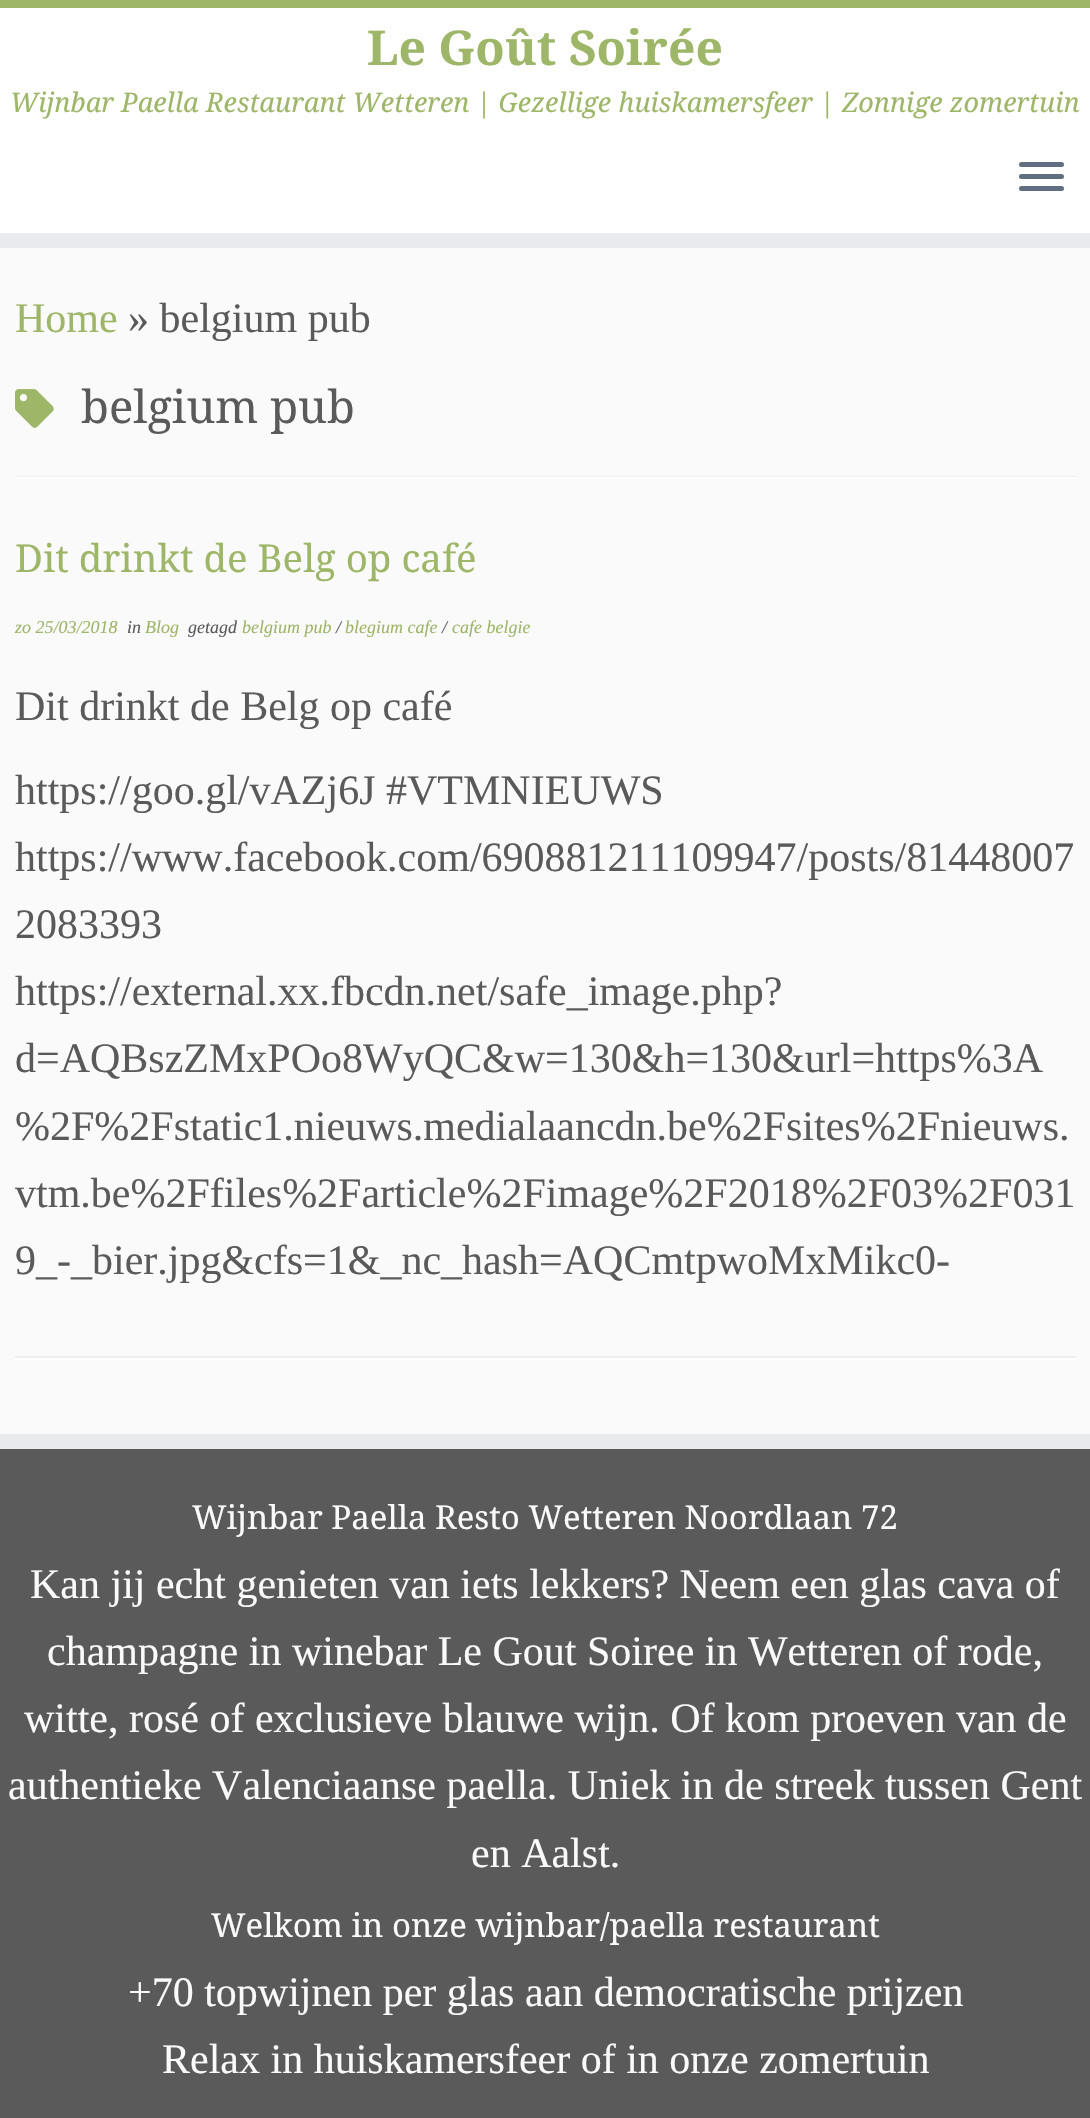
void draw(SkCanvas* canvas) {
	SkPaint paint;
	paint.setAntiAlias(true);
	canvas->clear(0xfffafafa);
	paint.setColor(0xffffffff);
	canvas->drawRect(SkRect::MakeXYWH(0, 8, 1090, 225), paint);
	paint.setColor(0xff9db668);
	canvas->drawRect(SkRect::MakeXYWH(0, 0, 1090, 8), paint);
	paint.setColor(0xffe9eaee);
	canvas->drawRect(SkRect::MakeXYWH(0, 233, 1090, 15), paint);
	SkFont f1(fontMgr->matchFamilyStyle("Noto Serif", SkFontStyle::Bold()), 48);
	f1.setSubpixel(true);
	paint.setColor(0xff9db668);
	canvas->drawString("Le Goût Soirée", 367, 65, f1, paint);
	SkFont f2(fontMgr->matchFamilyStyle("Noto Serif", SkFontStyle::Italic()), 27);
	f2.setSubpixel(true);
	canvas->drawString("Wijnbar Paella Restaurant Wetteren | Gezellige huiskamersfeer | Zonnige zomertuin", 10, 112, f2, paint);
	paint.setColor(0xff5f6f81);
	canvas->drawRoundRect(SkRect::MakeXYWH(1019, 162, 45, 5), 2.5, 2.5, paint);
	canvas->drawRoundRect(SkRect::MakeXYWH(1019, 174, 45, 5), 2.5, 2.5, paint);
	canvas->drawRoundRect(SkRect::MakeXYWH(1019, 186, 45, 5), 2.5, 2.5, paint);
	SkFont f3(fontMgr->matchFamilyStyle("Liberation Serif", SkFontStyle::Normal()), 42);
	f3.setSubpixel(true);
	paint.setColor(0xff9db668);
	canvas->drawString("Home", 15, 332, f3, paint);
	paint.setColor(0xff5a5a5a);
	canvas->drawString("» belgium pub", 128, 332, f3, paint);
	canvas->drawImageRect(SkImages::DeferredFromEncodedData(SkData::MakeFromFileName("img1.png")), SkRect::MakeXYWH(15, 389, 39, 39), SkSamplingOptions());
	SkFont f4(fontMgr->matchFamilyStyle("Noto Serif", SkFontStyle::Normal()), 45.5);
	f4.setSubpixel(true);
	canvas->drawString("belgium pub", 81, 423, f4, paint);
	paint.setColor(0xffeeeeee);
	canvas->drawRect(SkRect::MakeXYWH(15, 476, 1061, 1), paint);
	paint.setColor(0xffffffff);
	canvas->drawRect(SkRect::MakeXYWH(15, 477, 1061, 2), paint);
	SkFont f5(fontMgr->matchFamilyStyle("Noto Serif", SkFontStyle::Normal()), 38.4);
	f5.setSubpixel(true);
	paint.setColor(0xff9db668);
	canvas->drawString("Dit drinkt de Belg op café", 15, 572, f5, paint);
	SkFont f6(fontMgr->matchFamilyStyle("Liberation Serif", SkFontStyle::Italic()), 18);
	f6.setSubpixel(true);
	canvas->drawString("zo 25/03/2018", 15, 633, f6, paint);
	paint.setColor(0xff5a5a5a);
	canvas->drawString("in", 127, 633, f6, paint);
	paint.setColor(0xff9db668);
	canvas->drawString("Blog", 145, 633, f6, paint);
	paint.setColor(0xff5a5a5a);
	canvas->drawString("getagd", 188, 633, f6, paint);
	paint.setColor(0xff9db668);
	canvas->drawString("belgium pub", 242, 633, f6, paint);
	paint.setColor(0xff5a5a5a);
	canvas->drawString("/", 336, 633, f6, paint);
	paint.setColor(0xff9db668);
	canvas->drawString("blegium cafe", 345, 633, f6, paint);
	paint.setColor(0xff5a5a5a);
	canvas->drawString("/", 442, 633, f6, paint);
	paint.setColor(0xff9db668);
	canvas->drawString("cafe belgie", 452, 633, f6, paint);
	paint.setColor(0xff5a5a5a);
	canvas->drawString("Dit drinkt de Belg op café", 15, 720, f3, paint);
	canvas->drawString("https://goo.gl/vAZj6J #VTMNIEUWS", 15, 804, f3, paint);
	canvas->drawString("https://www.facebook.com/690881211109947/posts/81448007", 15, 871, f3, paint);
	canvas->drawString("2083393", 15, 938, f3, paint);
	canvas->drawString("https://external.xx.fbcdn.net/safe_image.php?", 15, 1005, f3, paint);
	canvas->drawString("d=AQBszZMxPOo8WyQC&w=130&h=130&url=https%3A", 15, 1072, f3, paint);
	canvas->drawString("%2F%2Fstatic1.nieuws.medialaancdn.be%2Fsites%2Fnieuws.", 15, 1140, f3, paint);
	canvas->drawString("vtm.be%2Ffiles%2Farticle%2Fimage%2F2018%2F03%2F031", 15, 1207, f3, paint);
	canvas->drawString("9_-_bier.jpg&cfs=1&_nc_hash=AQCmtpwoMxMikc0-", 15, 1274, f3, paint);
	paint.setColor(0xffeeeeee);
	canvas->drawRect(SkRect::MakeXYWH(15, 1356, 1061, 2), paint);
	paint.setColor(0xffffffff);
	canvas->drawRect(SkRect::MakeXYWH(15, 1358, 1061, 2), paint);
	paint.setColor(0xff5a5a5a);
	canvas->drawRect(SkRect::MakeXYWH(0, 1449, 1090, 669), paint);
	paint.setColor(0xffe9eaee);
	canvas->drawRect(SkRect::MakeXYWH(0, 1434, 1090, 15), paint);
	SkFont f7(fontMgr->matchFamilyStyle("Noto Serif", SkFontStyle::Normal()), 33);
	f7.setSubpixel(true);
	paint.setColor(0xfffafafa);
	canvas->drawString("Wijnbar Paella Resto Wetteren Noordlaan 72", 192, 1529, f7, paint);
	canvas->drawString("Kan jij echt genieten van iets lekkers? Neem een glas cava of", 30, 1598, f3, paint);
	canvas->drawString("champagne in winebar Le Gout Soiree in Wetteren of rode,", 47, 1665, f3, paint);
	canvas->drawString("witte, rosé of exclusieve blauwe wijn. Of kom proeven van de", 24, 1732, f3, paint);
	canvas->drawString("authentieke Valenciaanse paella. Uniek in de streek tussen Gent", 8, 1799, f3, paint);
	canvas->drawString("en Aalst.", 471, 1867, f3, paint);
	canvas->drawString("Welkom in onze wijnbar/paella restaurant", 211, 1937, f7, paint);
	canvas->drawString("+70 topwijnen per glas aan democratische prijzen", 128, 2006, f3, paint);
	canvas->drawString("Relax in huiskamersfeer of in onze zomertuin", 162, 2073, f3, paint);
}
